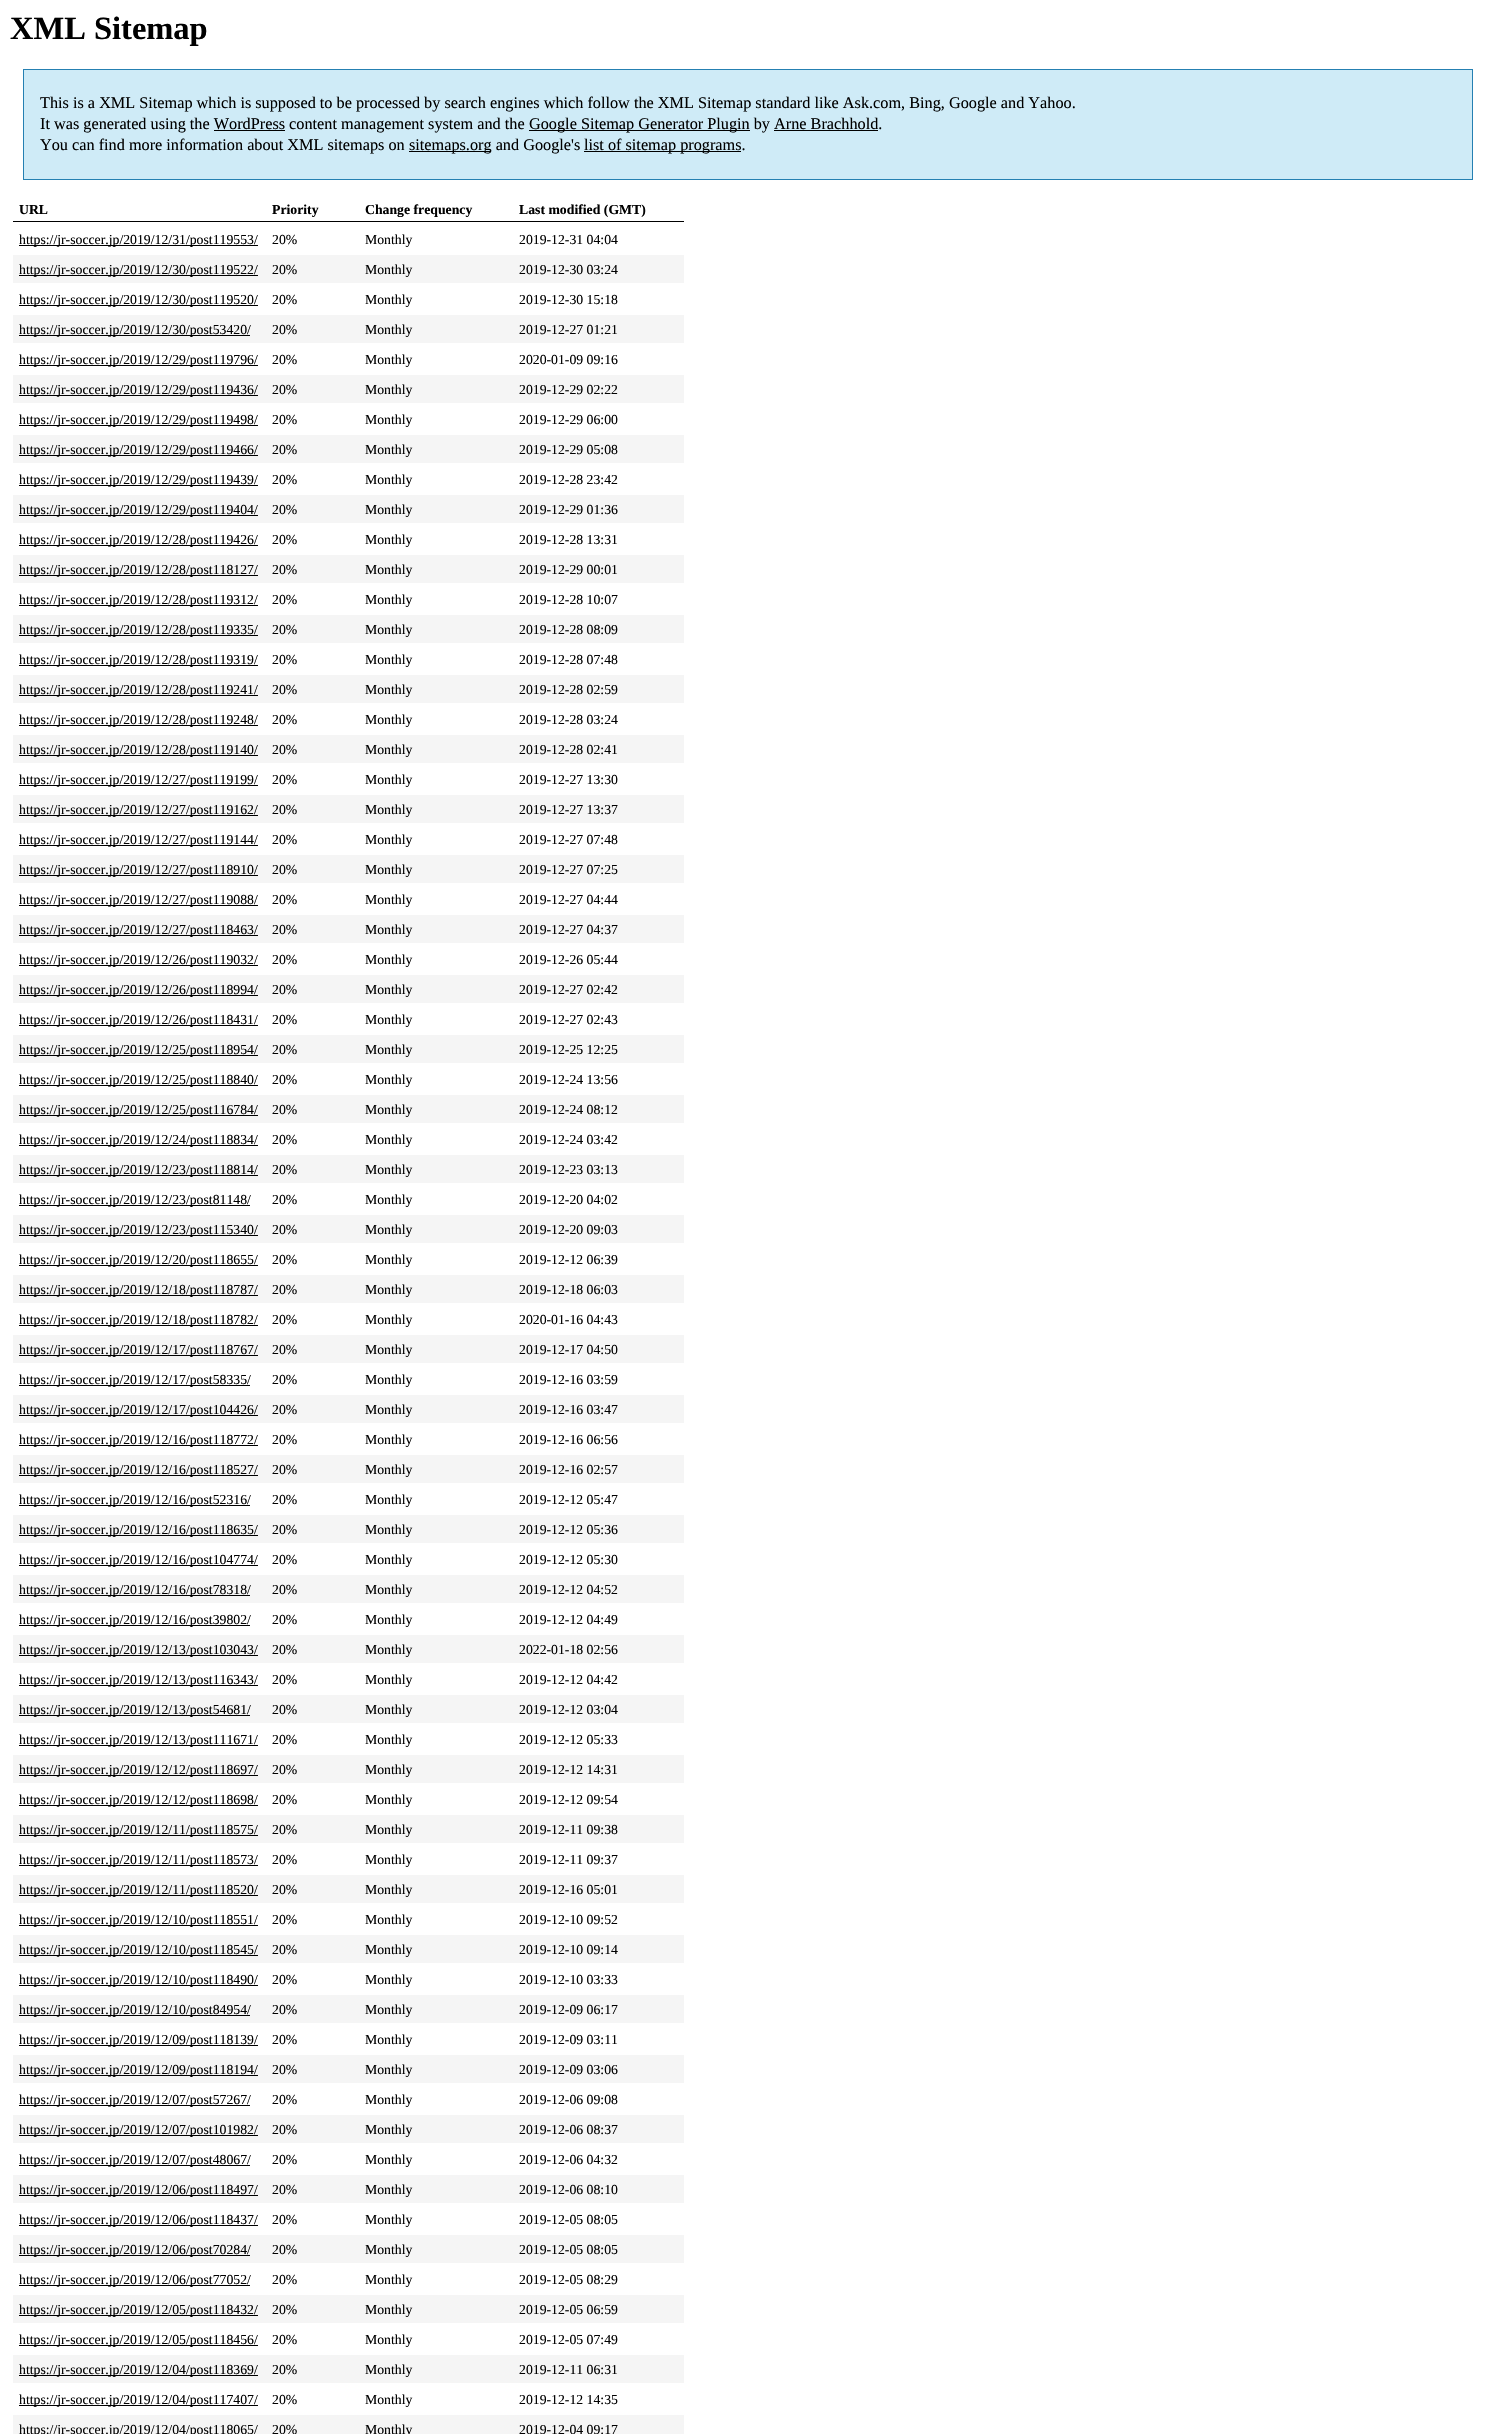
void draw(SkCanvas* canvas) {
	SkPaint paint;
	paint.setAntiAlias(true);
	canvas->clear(0xffffffff);
	SkFont f1(fontMgr->matchFamilyStyle("Liberation Serif", SkFontStyle::Bold()), 32.5);
	f1.setSubpixel(true);
	paint.setColor(0xff000000);
	canvas->drawString("XML Sitemap", 10, 39, f1, paint);
	paint.setColor(0xffcfebf7);
	canvas->drawRect(SkRect::MakeXYWH(23.5, 69.5, 1449, 110), paint);
	paint.setStroke(true);
	paint.setStrokeWidth(1);
	paint.setColor(0xff2580b2);
	canvas->drawRect(SkRect::MakeXYWH(23.5, 69.5, 1449, 110), paint);
	SkFont f2(fontMgr->matchFamilyStyle("Liberation Serif", SkFontStyle::Normal()), 16.25);
	f2.setSubpixel(true);
	paint.setStroke(false);
	paint.setColor(0xff000000);
	canvas->drawString("This is a XML Sitemap which is supposed to be processed by search engines which follow the XML Sitemap standard like Ask.com, Bing, Google and Yahoo.", 40, 108, f2, paint);
	canvas->drawString("It was generated using the WordPress content management system and the", 40, 129, f2, paint);
	canvas->drawRect(SkRect::MakeXYWH(529, 130, 221, 1), paint);
	canvas->drawString("Google Sitemap Generator Plugin by Arne Brachhold.", 529, 129, f2, paint);
	canvas->drawRect(SkRect::MakeXYWH(214, 130, 71, 1), paint);
	canvas->drawRect(SkRect::MakeXYWH(774, 130, 104, 1), paint);
	canvas->drawString("You can find more information about XML sitemaps on", 40, 150, f2, paint);
	canvas->drawRect(SkRect::MakeXYWH(409, 151, 82, 1), paint);
	canvas->drawString("sitemaps.org and Google's", 409, 150, f2, paint);
	canvas->drawRect(SkRect::MakeXYWH(584, 151, 157, 1), paint);
	canvas->drawString("list of sitemap programs.", 584, 150, f2, paint);
	canvas->drawRect(SkRect::MakeXYWH(13, 221, 671, 1), paint);
	SkFont f3(fontMgr->matchFamilyStyle("Liberation Serif", SkFontStyle::Bold()), 13.75);
	f3.setSubpixel(true);
	canvas->drawString("URL", 19, 214, f3, paint);
	canvas->drawString("Priority", 272, 214, f3, paint);
	canvas->drawString("Change frequency", 365, 214, f3, paint);
	canvas->drawString("Last modified (GMT)", 519, 214, f3, paint);
	canvas->drawRect(SkRect::MakeXYWH(19, 245, 239, 1), paint);
	SkFont f4(fontMgr->matchFamilyStyle("Liberation Serif", SkFontStyle::Normal()), 13.75);
	f4.setSubpixel(true);
	canvas->drawString("https://jr-soccer.jp/2019/12/31/post119553/", 19, 244, f4, paint);
	canvas->drawString("20%", 272, 244, f4, paint);
	canvas->drawString("Monthly", 365, 244, f4, paint);
	canvas->drawString("2019-12-31 04:04", 519, 244, f4, paint);
	paint.setColor(0xfff5f5f5);
	canvas->drawRect(SkRect::MakeXYWH(13, 255, 671, 28), paint);
	paint.setColor(0xff000000);
	canvas->drawRect(SkRect::MakeXYWH(19, 275, 239, 1), paint);
	canvas->drawString("https://jr-soccer.jp/2019/12/30/post119522/", 19, 274, f4, paint);
	canvas->drawString("20%", 272, 274, f4, paint);
	canvas->drawString("Monthly", 365, 274, f4, paint);
	canvas->drawString("2019-12-30 03:24", 519, 274, f4, paint);
	canvas->drawRect(SkRect::MakeXYWH(19, 305, 239, 1), paint);
	canvas->drawString("https://jr-soccer.jp/2019/12/30/post119520/", 19, 304, f4, paint);
	canvas->drawString("20%", 272, 304, f4, paint);
	canvas->drawString("Monthly", 365, 304, f4, paint);
	canvas->drawString("2019-12-30 15:18", 519, 304, f4, paint);
	paint.setColor(0xfff5f5f5);
	canvas->drawRect(SkRect::MakeXYWH(13, 315, 671, 28), paint);
	paint.setColor(0xff000000);
	canvas->drawRect(SkRect::MakeXYWH(19, 335, 231, 1), paint);
	canvas->drawString("https://jr-soccer.jp/2019/12/30/post53420/", 19, 334, f4, paint);
	canvas->drawString("20%", 272, 334, f4, paint);
	canvas->drawString("Monthly", 365, 334, f4, paint);
	canvas->drawString("2019-12-27 01:21", 519, 334, f4, paint);
	canvas->drawRect(SkRect::MakeXYWH(19, 365, 239, 1), paint);
	canvas->drawString("https://jr-soccer.jp/2019/12/29/post119796/", 19, 364, f4, paint);
	canvas->drawString("20%", 272, 364, f4, paint);
	canvas->drawString("Monthly", 365, 364, f4, paint);
	canvas->drawString("2020-01-09 09:16", 519, 364, f4, paint);
	paint.setColor(0xfff5f5f5);
	canvas->drawRect(SkRect::MakeXYWH(13, 375, 671, 28), paint);
	paint.setColor(0xff000000);
	canvas->drawRect(SkRect::MakeXYWH(19, 395, 239, 1), paint);
	canvas->drawString("https://jr-soccer.jp/2019/12/29/post119436/", 19, 394, f4, paint);
	canvas->drawString("20%", 272, 394, f4, paint);
	canvas->drawString("Monthly", 365, 394, f4, paint);
	canvas->drawString("2019-12-29 02:22", 519, 394, f4, paint);
	canvas->drawRect(SkRect::MakeXYWH(19, 425, 239, 1), paint);
	canvas->drawString("https://jr-soccer.jp/2019/12/29/post119498/", 19, 424, f4, paint);
	canvas->drawString("20%", 272, 424, f4, paint);
	canvas->drawString("Monthly", 365, 424, f4, paint);
	canvas->drawString("2019-12-29 06:00", 519, 424, f4, paint);
	paint.setColor(0xfff5f5f5);
	canvas->drawRect(SkRect::MakeXYWH(13, 435, 671, 28), paint);
	paint.setColor(0xff000000);
	canvas->drawRect(SkRect::MakeXYWH(19, 455, 239, 1), paint);
	canvas->drawString("https://jr-soccer.jp/2019/12/29/post119466/", 19, 454, f4, paint);
	canvas->drawString("20%", 272, 454, f4, paint);
	canvas->drawString("Monthly", 365, 454, f4, paint);
	canvas->drawString("2019-12-29 05:08", 519, 454, f4, paint);
	canvas->drawRect(SkRect::MakeXYWH(19, 485, 239, 1), paint);
	canvas->drawString("https://jr-soccer.jp/2019/12/29/post119439/", 19, 484, f4, paint);
	canvas->drawString("20%", 272, 484, f4, paint);
	canvas->drawString("Monthly", 365, 484, f4, paint);
	canvas->drawString("2019-12-28 23:42", 519, 484, f4, paint);
	paint.setColor(0xfff5f5f5);
	canvas->drawRect(SkRect::MakeXYWH(13, 495, 671, 28), paint);
	paint.setColor(0xff000000);
	canvas->drawRect(SkRect::MakeXYWH(19, 515, 239, 1), paint);
	canvas->drawString("https://jr-soccer.jp/2019/12/29/post119404/", 19, 514, f4, paint);
	canvas->drawString("20%", 272, 514, f4, paint);
	canvas->drawString("Monthly", 365, 514, f4, paint);
	canvas->drawString("2019-12-29 01:36", 519, 514, f4, paint);
	canvas->drawRect(SkRect::MakeXYWH(19, 545, 239, 1), paint);
	canvas->drawString("https://jr-soccer.jp/2019/12/28/post119426/", 19, 544, f4, paint);
	canvas->drawString("20%", 272, 544, f4, paint);
	canvas->drawString("Monthly", 365, 544, f4, paint);
	canvas->drawString("2019-12-28 13:31", 519, 544, f4, paint);
	paint.setColor(0xfff5f5f5);
	canvas->drawRect(SkRect::MakeXYWH(13, 555, 671, 28), paint);
	paint.setColor(0xff000000);
	canvas->drawRect(SkRect::MakeXYWH(19, 575, 239, 1), paint);
	canvas->drawString("https://jr-soccer.jp/2019/12/28/post118127/", 19, 574, f4, paint);
	canvas->drawString("20%", 272, 574, f4, paint);
	canvas->drawString("Monthly", 365, 574, f4, paint);
	canvas->drawString("2019-12-29 00:01", 519, 574, f4, paint);
	canvas->drawRect(SkRect::MakeXYWH(19, 605, 239, 1), paint);
	canvas->drawString("https://jr-soccer.jp/2019/12/28/post119312/", 19, 604, f4, paint);
	canvas->drawString("20%", 272, 604, f4, paint);
	canvas->drawString("Monthly", 365, 604, f4, paint);
	canvas->drawString("2019-12-28 10:07", 519, 604, f4, paint);
	paint.setColor(0xfff5f5f5);
	canvas->drawRect(SkRect::MakeXYWH(13, 615, 671, 28), paint);
	paint.setColor(0xff000000);
	canvas->drawRect(SkRect::MakeXYWH(19, 635, 239, 1), paint);
	canvas->drawString("https://jr-soccer.jp/2019/12/28/post119335/", 19, 634, f4, paint);
	canvas->drawString("20%", 272, 634, f4, paint);
	canvas->drawString("Monthly", 365, 634, f4, paint);
	canvas->drawString("2019-12-28 08:09", 519, 634, f4, paint);
	canvas->drawRect(SkRect::MakeXYWH(19, 665, 239, 1), paint);
	canvas->drawString("https://jr-soccer.jp/2019/12/28/post119319/", 19, 664, f4, paint);
	canvas->drawString("20%", 272, 664, f4, paint);
	canvas->drawString("Monthly", 365, 664, f4, paint);
	canvas->drawString("2019-12-28 07:48", 519, 664, f4, paint);
	paint.setColor(0xfff5f5f5);
	canvas->drawRect(SkRect::MakeXYWH(13, 675, 671, 28), paint);
	paint.setColor(0xff000000);
	canvas->drawRect(SkRect::MakeXYWH(19, 695, 239, 1), paint);
	canvas->drawString("https://jr-soccer.jp/2019/12/28/post119241/", 19, 694, f4, paint);
	canvas->drawString("20%", 272, 694, f4, paint);
	canvas->drawString("Monthly", 365, 694, f4, paint);
	canvas->drawString("2019-12-28 02:59", 519, 694, f4, paint);
	canvas->drawRect(SkRect::MakeXYWH(19, 725, 239, 1), paint);
	canvas->drawString("https://jr-soccer.jp/2019/12/28/post119248/", 19, 724, f4, paint);
	canvas->drawString("20%", 272, 724, f4, paint);
	canvas->drawString("Monthly", 365, 724, f4, paint);
	canvas->drawString("2019-12-28 03:24", 519, 724, f4, paint);
	paint.setColor(0xfff5f5f5);
	canvas->drawRect(SkRect::MakeXYWH(13, 735, 671, 28), paint);
	paint.setColor(0xff000000);
	canvas->drawRect(SkRect::MakeXYWH(19, 755, 239, 1), paint);
	canvas->drawString("https://jr-soccer.jp/2019/12/28/post119140/", 19, 754, f4, paint);
	canvas->drawString("20%", 272, 754, f4, paint);
	canvas->drawString("Monthly", 365, 754, f4, paint);
	canvas->drawString("2019-12-28 02:41", 519, 754, f4, paint);
	canvas->drawRect(SkRect::MakeXYWH(19, 785, 239, 1), paint);
	canvas->drawString("https://jr-soccer.jp/2019/12/27/post119199/", 19, 784, f4, paint);
	canvas->drawString("20%", 272, 784, f4, paint);
	canvas->drawString("Monthly", 365, 784, f4, paint);
	canvas->drawString("2019-12-27 13:30", 519, 784, f4, paint);
	paint.setColor(0xfff5f5f5);
	canvas->drawRect(SkRect::MakeXYWH(13, 795, 671, 28), paint);
	paint.setColor(0xff000000);
	canvas->drawRect(SkRect::MakeXYWH(19, 815, 239, 1), paint);
	canvas->drawString("https://jr-soccer.jp/2019/12/27/post119162/", 19, 814, f4, paint);
	canvas->drawString("20%", 272, 814, f4, paint);
	canvas->drawString("Monthly", 365, 814, f4, paint);
	canvas->drawString("2019-12-27 13:37", 519, 814, f4, paint);
	canvas->drawRect(SkRect::MakeXYWH(19, 845, 239, 1), paint);
	canvas->drawString("https://jr-soccer.jp/2019/12/27/post119144/", 19, 844, f4, paint);
	canvas->drawString("20%", 272, 844, f4, paint);
	canvas->drawString("Monthly", 365, 844, f4, paint);
	canvas->drawString("2019-12-27 07:48", 519, 844, f4, paint);
	paint.setColor(0xfff5f5f5);
	canvas->drawRect(SkRect::MakeXYWH(13, 855, 671, 28), paint);
	paint.setColor(0xff000000);
	canvas->drawRect(SkRect::MakeXYWH(19, 875, 239, 1), paint);
	canvas->drawString("https://jr-soccer.jp/2019/12/27/post118910/", 19, 874, f4, paint);
	canvas->drawString("20%", 272, 874, f4, paint);
	canvas->drawString("Monthly", 365, 874, f4, paint);
	canvas->drawString("2019-12-27 07:25", 519, 874, f4, paint);
	canvas->drawRect(SkRect::MakeXYWH(19, 905, 239, 1), paint);
	canvas->drawString("https://jr-soccer.jp/2019/12/27/post119088/", 19, 904, f4, paint);
	canvas->drawString("20%", 272, 904, f4, paint);
	canvas->drawString("Monthly", 365, 904, f4, paint);
	canvas->drawString("2019-12-27 04:44", 519, 904, f4, paint);
	paint.setColor(0xfff5f5f5);
	canvas->drawRect(SkRect::MakeXYWH(13, 915, 671, 28), paint);
	paint.setColor(0xff000000);
	canvas->drawRect(SkRect::MakeXYWH(19, 935, 239, 1), paint);
	canvas->drawString("https://jr-soccer.jp/2019/12/27/post118463/", 19, 934, f4, paint);
	canvas->drawString("20%", 272, 934, f4, paint);
	canvas->drawString("Monthly", 365, 934, f4, paint);
	canvas->drawString("2019-12-27 04:37", 519, 934, f4, paint);
	canvas->drawRect(SkRect::MakeXYWH(19, 965, 239, 1), paint);
	canvas->drawString("https://jr-soccer.jp/2019/12/26/post119032/", 19, 964, f4, paint);
	canvas->drawString("20%", 272, 964, f4, paint);
	canvas->drawString("Monthly", 365, 964, f4, paint);
	canvas->drawString("2019-12-26 05:44", 519, 964, f4, paint);
	paint.setColor(0xfff5f5f5);
	canvas->drawRect(SkRect::MakeXYWH(13, 975, 671, 28), paint);
	paint.setColor(0xff000000);
	canvas->drawRect(SkRect::MakeXYWH(19, 995, 239, 1), paint);
	canvas->drawString("https://jr-soccer.jp/2019/12/26/post118994/", 19, 994, f4, paint);
	canvas->drawString("20%", 272, 994, f4, paint);
	canvas->drawString("Monthly", 365, 994, f4, paint);
	canvas->drawString("2019-12-27 02:42", 519, 994, f4, paint);
	canvas->drawRect(SkRect::MakeXYWH(19, 1025, 239, 1), paint);
	canvas->drawString("https://jr-soccer.jp/2019/12/26/post118431/", 19, 1024, f4, paint);
	canvas->drawString("20%", 272, 1024, f4, paint);
	canvas->drawString("Monthly", 365, 1024, f4, paint);
	canvas->drawString("2019-12-27 02:43", 519, 1024, f4, paint);
	paint.setColor(0xfff5f5f5);
	canvas->drawRect(SkRect::MakeXYWH(13, 1035, 671, 28), paint);
	paint.setColor(0xff000000);
	canvas->drawRect(SkRect::MakeXYWH(19, 1055, 239, 1), paint);
	canvas->drawString("https://jr-soccer.jp/2019/12/25/post118954/", 19, 1054, f4, paint);
	canvas->drawString("20%", 272, 1054, f4, paint);
	canvas->drawString("Monthly", 365, 1054, f4, paint);
	canvas->drawString("2019-12-25 12:25", 519, 1054, f4, paint);
	canvas->drawRect(SkRect::MakeXYWH(19, 1085, 239, 1), paint);
	canvas->drawString("https://jr-soccer.jp/2019/12/25/post118840/", 19, 1084, f4, paint);
	canvas->drawString("20%", 272, 1084, f4, paint);
	canvas->drawString("Monthly", 365, 1084, f4, paint);
	canvas->drawString("2019-12-24 13:56", 519, 1084, f4, paint);
	paint.setColor(0xfff5f5f5);
	canvas->drawRect(SkRect::MakeXYWH(13, 1095, 671, 28), paint);
	paint.setColor(0xff000000);
	canvas->drawRect(SkRect::MakeXYWH(19, 1115, 239, 1), paint);
	canvas->drawString("https://jr-soccer.jp/2019/12/25/post116784/", 19, 1114, f4, paint);
	canvas->drawString("20%", 272, 1114, f4, paint);
	canvas->drawString("Monthly", 365, 1114, f4, paint);
	canvas->drawString("2019-12-24 08:12", 519, 1114, f4, paint);
	canvas->drawRect(SkRect::MakeXYWH(19, 1145, 239, 1), paint);
	canvas->drawString("https://jr-soccer.jp/2019/12/24/post118834/", 19, 1144, f4, paint);
	canvas->drawString("20%", 272, 1144, f4, paint);
	canvas->drawString("Monthly", 365, 1144, f4, paint);
	canvas->drawString("2019-12-24 03:42", 519, 1144, f4, paint);
	paint.setColor(0xfff5f5f5);
	canvas->drawRect(SkRect::MakeXYWH(13, 1155, 671, 28), paint);
	paint.setColor(0xff000000);
	canvas->drawRect(SkRect::MakeXYWH(19, 1175, 239, 1), paint);
	canvas->drawString("https://jr-soccer.jp/2019/12/23/post118814/", 19, 1174, f4, paint);
	canvas->drawString("20%", 272, 1174, f4, paint);
	canvas->drawString("Monthly", 365, 1174, f4, paint);
	canvas->drawString("2019-12-23 03:13", 519, 1174, f4, paint);
	canvas->drawRect(SkRect::MakeXYWH(19, 1205, 231, 1), paint);
	canvas->drawString("https://jr-soccer.jp/2019/12/23/post81148/", 19, 1204, f4, paint);
	canvas->drawString("20%", 272, 1204, f4, paint);
	canvas->drawString("Monthly", 365, 1204, f4, paint);
	canvas->drawString("2019-12-20 04:02", 519, 1204, f4, paint);
	paint.setColor(0xfff5f5f5);
	canvas->drawRect(SkRect::MakeXYWH(13, 1215, 671, 28), paint);
	paint.setColor(0xff000000);
	canvas->drawRect(SkRect::MakeXYWH(19, 1235, 239, 1), paint);
	canvas->drawString("https://jr-soccer.jp/2019/12/23/post115340/", 19, 1234, f4, paint);
	canvas->drawString("20%", 272, 1234, f4, paint);
	canvas->drawString("Monthly", 365, 1234, f4, paint);
	canvas->drawString("2019-12-20 09:03", 519, 1234, f4, paint);
	canvas->drawRect(SkRect::MakeXYWH(19, 1265, 239, 1), paint);
	canvas->drawString("https://jr-soccer.jp/2019/12/20/post118655/", 19, 1264, f4, paint);
	canvas->drawString("20%", 272, 1264, f4, paint);
	canvas->drawString("Monthly", 365, 1264, f4, paint);
	canvas->drawString("2019-12-12 06:39", 519, 1264, f4, paint);
	paint.setColor(0xfff5f5f5);
	canvas->drawRect(SkRect::MakeXYWH(13, 1275, 671, 28), paint);
	paint.setColor(0xff000000);
	canvas->drawRect(SkRect::MakeXYWH(19, 1295, 239, 1), paint);
	canvas->drawString("https://jr-soccer.jp/2019/12/18/post118787/", 19, 1294, f4, paint);
	canvas->drawString("20%", 272, 1294, f4, paint);
	canvas->drawString("Monthly", 365, 1294, f4, paint);
	canvas->drawString("2019-12-18 06:03", 519, 1294, f4, paint);
	canvas->drawRect(SkRect::MakeXYWH(19, 1325, 239, 1), paint);
	canvas->drawString("https://jr-soccer.jp/2019/12/18/post118782/", 19, 1324, f4, paint);
	canvas->drawString("20%", 272, 1324, f4, paint);
	canvas->drawString("Monthly", 365, 1324, f4, paint);
	canvas->drawString("2020-01-16 04:43", 519, 1324, f4, paint);
	paint.setColor(0xfff5f5f5);
	canvas->drawRect(SkRect::MakeXYWH(13, 1335, 671, 28), paint);
	paint.setColor(0xff000000);
	canvas->drawRect(SkRect::MakeXYWH(19, 1355, 239, 1), paint);
	canvas->drawString("https://jr-soccer.jp/2019/12/17/post118767/", 19, 1354, f4, paint);
	canvas->drawString("20%", 272, 1354, f4, paint);
	canvas->drawString("Monthly", 365, 1354, f4, paint);
	canvas->drawString("2019-12-17 04:50", 519, 1354, f4, paint);
	canvas->drawRect(SkRect::MakeXYWH(19, 1385, 231, 1), paint);
	canvas->drawString("https://jr-soccer.jp/2019/12/17/post58335/", 19, 1384, f4, paint);
	canvas->drawString("20%", 272, 1384, f4, paint);
	canvas->drawString("Monthly", 365, 1384, f4, paint);
	canvas->drawString("2019-12-16 03:59", 519, 1384, f4, paint);
	paint.setColor(0xfff5f5f5);
	canvas->drawRect(SkRect::MakeXYWH(13, 1395, 671, 28), paint);
	paint.setColor(0xff000000);
	canvas->drawRect(SkRect::MakeXYWH(19, 1415, 239, 1), paint);
	canvas->drawString("https://jr-soccer.jp/2019/12/17/post104426/", 19, 1414, f4, paint);
	canvas->drawString("20%", 272, 1414, f4, paint);
	canvas->drawString("Monthly", 365, 1414, f4, paint);
	canvas->drawString("2019-12-16 03:47", 519, 1414, f4, paint);
	canvas->drawRect(SkRect::MakeXYWH(19, 1445, 239, 1), paint);
	canvas->drawString("https://jr-soccer.jp/2019/12/16/post118772/", 19, 1444, f4, paint);
	canvas->drawString("20%", 272, 1444, f4, paint);
	canvas->drawString("Monthly", 365, 1444, f4, paint);
	canvas->drawString("2019-12-16 06:56", 519, 1444, f4, paint);
	paint.setColor(0xfff5f5f5);
	canvas->drawRect(SkRect::MakeXYWH(13, 1455, 671, 28), paint);
	paint.setColor(0xff000000);
	canvas->drawRect(SkRect::MakeXYWH(19, 1475, 239, 1), paint);
	canvas->drawString("https://jr-soccer.jp/2019/12/16/post118527/", 19, 1474, f4, paint);
	canvas->drawString("20%", 272, 1474, f4, paint);
	canvas->drawString("Monthly", 365, 1474, f4, paint);
	canvas->drawString("2019-12-16 02:57", 519, 1474, f4, paint);
	canvas->drawRect(SkRect::MakeXYWH(19, 1505, 231, 1), paint);
	canvas->drawString("https://jr-soccer.jp/2019/12/16/post52316/", 19, 1504, f4, paint);
	canvas->drawString("20%", 272, 1504, f4, paint);
	canvas->drawString("Monthly", 365, 1504, f4, paint);
	canvas->drawString("2019-12-12 05:47", 519, 1504, f4, paint);
	paint.setColor(0xfff5f5f5);
	canvas->drawRect(SkRect::MakeXYWH(13, 1515, 671, 28), paint);
	paint.setColor(0xff000000);
	canvas->drawRect(SkRect::MakeXYWH(19, 1535, 239, 1), paint);
	canvas->drawString("https://jr-soccer.jp/2019/12/16/post118635/", 19, 1534, f4, paint);
	canvas->drawString("20%", 272, 1534, f4, paint);
	canvas->drawString("Monthly", 365, 1534, f4, paint);
	canvas->drawString("2019-12-12 05:36", 519, 1534, f4, paint);
	canvas->drawRect(SkRect::MakeXYWH(19, 1565, 239, 1), paint);
	canvas->drawString("https://jr-soccer.jp/2019/12/16/post104774/", 19, 1564, f4, paint);
	canvas->drawString("20%", 272, 1564, f4, paint);
	canvas->drawString("Monthly", 365, 1564, f4, paint);
	canvas->drawString("2019-12-12 05:30", 519, 1564, f4, paint);
	paint.setColor(0xfff5f5f5);
	canvas->drawRect(SkRect::MakeXYWH(13, 1575, 671, 28), paint);
	paint.setColor(0xff000000);
	canvas->drawRect(SkRect::MakeXYWH(19, 1595, 231, 1), paint);
	canvas->drawString("https://jr-soccer.jp/2019/12/16/post78318/", 19, 1594, f4, paint);
	canvas->drawString("20%", 272, 1594, f4, paint);
	canvas->drawString("Monthly", 365, 1594, f4, paint);
	canvas->drawString("2019-12-12 04:52", 519, 1594, f4, paint);
	canvas->drawRect(SkRect::MakeXYWH(19, 1625, 231, 1), paint);
	canvas->drawString("https://jr-soccer.jp/2019/12/16/post39802/", 19, 1624, f4, paint);
	canvas->drawString("20%", 272, 1624, f4, paint);
	canvas->drawString("Monthly", 365, 1624, f4, paint);
	canvas->drawString("2019-12-12 04:49", 519, 1624, f4, paint);
	paint.setColor(0xfff5f5f5);
	canvas->drawRect(SkRect::MakeXYWH(13, 1635, 671, 28), paint);
	paint.setColor(0xff000000);
	canvas->drawRect(SkRect::MakeXYWH(19, 1655, 239, 1), paint);
	canvas->drawString("https://jr-soccer.jp/2019/12/13/post103043/", 19, 1654, f4, paint);
	canvas->drawString("20%", 272, 1654, f4, paint);
	canvas->drawString("Monthly", 365, 1654, f4, paint);
	canvas->drawString("2022-01-18 02:56", 519, 1654, f4, paint);
	canvas->drawRect(SkRect::MakeXYWH(19, 1685, 239, 1), paint);
	canvas->drawString("https://jr-soccer.jp/2019/12/13/post116343/", 19, 1684, f4, paint);
	canvas->drawString("20%", 272, 1684, f4, paint);
	canvas->drawString("Monthly", 365, 1684, f4, paint);
	canvas->drawString("2019-12-12 04:42", 519, 1684, f4, paint);
	paint.setColor(0xfff5f5f5);
	canvas->drawRect(SkRect::MakeXYWH(13, 1695, 671, 28), paint);
	paint.setColor(0xff000000);
	canvas->drawRect(SkRect::MakeXYWH(19, 1715, 231, 1), paint);
	canvas->drawString("https://jr-soccer.jp/2019/12/13/post54681/", 19, 1714, f4, paint);
	canvas->drawString("20%", 272, 1714, f4, paint);
	canvas->drawString("Monthly", 365, 1714, f4, paint);
	canvas->drawString("2019-12-12 03:04", 519, 1714, f4, paint);
	canvas->drawRect(SkRect::MakeXYWH(19, 1745, 239, 1), paint);
	canvas->drawString("https://jr-soccer.jp/2019/12/13/post111671/", 19, 1744, f4, paint);
	canvas->drawString("20%", 272, 1744, f4, paint);
	canvas->drawString("Monthly", 365, 1744, f4, paint);
	canvas->drawString("2019-12-12 05:33", 519, 1744, f4, paint);
	paint.setColor(0xfff5f5f5);
	canvas->drawRect(SkRect::MakeXYWH(13, 1755, 671, 28), paint);
	paint.setColor(0xff000000);
	canvas->drawRect(SkRect::MakeXYWH(19, 1775, 239, 1), paint);
	canvas->drawString("https://jr-soccer.jp/2019/12/12/post118697/", 19, 1774, f4, paint);
	canvas->drawString("20%", 272, 1774, f4, paint);
	canvas->drawString("Monthly", 365, 1774, f4, paint);
	canvas->drawString("2019-12-12 14:31", 519, 1774, f4, paint);
	canvas->drawRect(SkRect::MakeXYWH(19, 1805, 239, 1), paint);
	canvas->drawString("https://jr-soccer.jp/2019/12/12/post118698/", 19, 1804, f4, paint);
	canvas->drawString("20%", 272, 1804, f4, paint);
	canvas->drawString("Monthly", 365, 1804, f4, paint);
	canvas->drawString("2019-12-12 09:54", 519, 1804, f4, paint);
	paint.setColor(0xfff5f5f5);
	canvas->drawRect(SkRect::MakeXYWH(13, 1815, 671, 28), paint);
	paint.setColor(0xff000000);
	canvas->drawRect(SkRect::MakeXYWH(19, 1835, 239, 1), paint);
	canvas->drawString("https://jr-soccer.jp/2019/12/11/post118575/", 19, 1834, f4, paint);
	canvas->drawString("20%", 272, 1834, f4, paint);
	canvas->drawString("Monthly", 365, 1834, f4, paint);
	canvas->drawString("2019-12-11 09:38", 519, 1834, f4, paint);
	canvas->drawRect(SkRect::MakeXYWH(19, 1865, 239, 1), paint);
	canvas->drawString("https://jr-soccer.jp/2019/12/11/post118573/", 19, 1864, f4, paint);
	canvas->drawString("20%", 272, 1864, f4, paint);
	canvas->drawString("Monthly", 365, 1864, f4, paint);
	canvas->drawString("2019-12-11 09:37", 519, 1864, f4, paint);
	paint.setColor(0xfff5f5f5);
	canvas->drawRect(SkRect::MakeXYWH(13, 1875, 671, 28), paint);
	paint.setColor(0xff000000);
	canvas->drawRect(SkRect::MakeXYWH(19, 1895, 239, 1), paint);
	canvas->drawString("https://jr-soccer.jp/2019/12/11/post118520/", 19, 1894, f4, paint);
	canvas->drawString("20%", 272, 1894, f4, paint);
	canvas->drawString("Monthly", 365, 1894, f4, paint);
	canvas->drawString("2019-12-16 05:01", 519, 1894, f4, paint);
	canvas->drawRect(SkRect::MakeXYWH(19, 1925, 239, 1), paint);
	canvas->drawString("https://jr-soccer.jp/2019/12/10/post118551/", 19, 1924, f4, paint);
	canvas->drawString("20%", 272, 1924, f4, paint);
	canvas->drawString("Monthly", 365, 1924, f4, paint);
	canvas->drawString("2019-12-10 09:52", 519, 1924, f4, paint);
	paint.setColor(0xfff5f5f5);
	canvas->drawRect(SkRect::MakeXYWH(13, 1935, 671, 28), paint);
	paint.setColor(0xff000000);
	canvas->drawRect(SkRect::MakeXYWH(19, 1955, 239, 1), paint);
	canvas->drawString("https://jr-soccer.jp/2019/12/10/post118545/", 19, 1954, f4, paint);
	canvas->drawString("20%", 272, 1954, f4, paint);
	canvas->drawString("Monthly", 365, 1954, f4, paint);
	canvas->drawString("2019-12-10 09:14", 519, 1954, f4, paint);
	canvas->drawRect(SkRect::MakeXYWH(19, 1985, 239, 1), paint);
	canvas->drawString("https://jr-soccer.jp/2019/12/10/post118490/", 19, 1984, f4, paint);
	canvas->drawString("20%", 272, 1984, f4, paint);
	canvas->drawString("Monthly", 365, 1984, f4, paint);
	canvas->drawString("2019-12-10 03:33", 519, 1984, f4, paint);
	paint.setColor(0xfff5f5f5);
	canvas->drawRect(SkRect::MakeXYWH(13, 1995, 671, 28), paint);
	paint.setColor(0xff000000);
	canvas->drawRect(SkRect::MakeXYWH(19, 2015, 231, 1), paint);
	canvas->drawString("https://jr-soccer.jp/2019/12/10/post84954/", 19, 2014, f4, paint);
	canvas->drawString("20%", 272, 2014, f4, paint);
	canvas->drawString("Monthly", 365, 2014, f4, paint);
	canvas->drawString("2019-12-09 06:17", 519, 2014, f4, paint);
	canvas->drawRect(SkRect::MakeXYWH(19, 2045, 239, 1), paint);
	canvas->drawString("https://jr-soccer.jp/2019/12/09/post118139/", 19, 2044, f4, paint);
	canvas->drawString("20%", 272, 2044, f4, paint);
	canvas->drawString("Monthly", 365, 2044, f4, paint);
	canvas->drawString("2019-12-09 03:11", 519, 2044, f4, paint);
	paint.setColor(0xfff5f5f5);
	canvas->drawRect(SkRect::MakeXYWH(13, 2055, 671, 28), paint);
	paint.setColor(0xff000000);
	canvas->drawRect(SkRect::MakeXYWH(19, 2075, 239, 1), paint);
	canvas->drawString("https://jr-soccer.jp/2019/12/09/post118194/", 19, 2074, f4, paint);
	canvas->drawString("20%", 272, 2074, f4, paint);
	canvas->drawString("Monthly", 365, 2074, f4, paint);
	canvas->drawString("2019-12-09 03:06", 519, 2074, f4, paint);
	canvas->drawRect(SkRect::MakeXYWH(19, 2105, 231, 1), paint);
	canvas->drawString("https://jr-soccer.jp/2019/12/07/post57267/", 19, 2104, f4, paint);
	canvas->drawString("20%", 272, 2104, f4, paint);
	canvas->drawString("Monthly", 365, 2104, f4, paint);
	canvas->drawString("2019-12-06 09:08", 519, 2104, f4, paint);
	paint.setColor(0xfff5f5f5);
	canvas->drawRect(SkRect::MakeXYWH(13, 2115, 671, 28), paint);
	paint.setColor(0xff000000);
	canvas->drawRect(SkRect::MakeXYWH(19, 2135, 239, 1), paint);
	canvas->drawString("https://jr-soccer.jp/2019/12/07/post101982/", 19, 2134, f4, paint);
	canvas->drawString("20%", 272, 2134, f4, paint);
	canvas->drawString("Monthly", 365, 2134, f4, paint);
	canvas->drawString("2019-12-06 08:37", 519, 2134, f4, paint);
	canvas->drawRect(SkRect::MakeXYWH(19, 2165, 231, 1), paint);
	canvas->drawString("https://jr-soccer.jp/2019/12/07/post48067/", 19, 2164, f4, paint);
	canvas->drawString("20%", 272, 2164, f4, paint);
	canvas->drawString("Monthly", 365, 2164, f4, paint);
	canvas->drawString("2019-12-06 04:32", 519, 2164, f4, paint);
	paint.setColor(0xfff5f5f5);
	canvas->drawRect(SkRect::MakeXYWH(13, 2175, 671, 28), paint);
	paint.setColor(0xff000000);
	canvas->drawRect(SkRect::MakeXYWH(19, 2195, 239, 1), paint);
	canvas->drawString("https://jr-soccer.jp/2019/12/06/post118497/", 19, 2194, f4, paint);
	canvas->drawString("20%", 272, 2194, f4, paint);
	canvas->drawString("Monthly", 365, 2194, f4, paint);
	canvas->drawString("2019-12-06 08:10", 519, 2194, f4, paint);
	canvas->drawRect(SkRect::MakeXYWH(19, 2225, 239, 1), paint);
	canvas->drawString("https://jr-soccer.jp/2019/12/06/post118437/", 19, 2224, f4, paint);
	canvas->drawString("20%", 272, 2224, f4, paint);
	canvas->drawString("Monthly", 365, 2224, f4, paint);
	canvas->drawString("2019-12-05 08:05", 519, 2224, f4, paint);
	paint.setColor(0xfff5f5f5);
	canvas->drawRect(SkRect::MakeXYWH(13, 2235, 671, 28), paint);
	paint.setColor(0xff000000);
	canvas->drawRect(SkRect::MakeXYWH(19, 2255, 231, 1), paint);
	canvas->drawString("https://jr-soccer.jp/2019/12/06/post70284/", 19, 2254, f4, paint);
	canvas->drawString("20%", 272, 2254, f4, paint);
	canvas->drawString("Monthly", 365, 2254, f4, paint);
	canvas->drawString("2019-12-05 08:05", 519, 2254, f4, paint);
	canvas->drawRect(SkRect::MakeXYWH(19, 2285, 231, 1), paint);
	canvas->drawString("https://jr-soccer.jp/2019/12/06/post77052/", 19, 2284, f4, paint);
	canvas->drawString("20%", 272, 2284, f4, paint);
	canvas->drawString("Monthly", 365, 2284, f4, paint);
	canvas->drawString("2019-12-05 08:29", 519, 2284, f4, paint);
	paint.setColor(0xfff5f5f5);
	canvas->drawRect(SkRect::MakeXYWH(13, 2295, 671, 28), paint);
	paint.setColor(0xff000000);
	canvas->drawRect(SkRect::MakeXYWH(19, 2315, 239, 1), paint);
	canvas->drawString("https://jr-soccer.jp/2019/12/05/post118432/", 19, 2314, f4, paint);
	canvas->drawString("20%", 272, 2314, f4, paint);
	canvas->drawString("Monthly", 365, 2314, f4, paint);
	canvas->drawString("2019-12-05 06:59", 519, 2314, f4, paint);
	canvas->drawRect(SkRect::MakeXYWH(19, 2345, 239, 1), paint);
	canvas->drawString("https://jr-soccer.jp/2019/12/05/post118456/", 19, 2344, f4, paint);
	canvas->drawString("20%", 272, 2344, f4, paint);
	canvas->drawString("Monthly", 365, 2344, f4, paint);
	canvas->drawString("2019-12-05 07:49", 519, 2344, f4, paint);
	paint.setColor(0xfff5f5f5);
	canvas->drawRect(SkRect::MakeXYWH(13, 2355, 671, 28), paint);
	paint.setColor(0xff000000);
	canvas->drawRect(SkRect::MakeXYWH(19, 2375, 239, 1), paint);
	canvas->drawString("https://jr-soccer.jp/2019/12/04/post118369/", 19, 2374, f4, paint);
	canvas->drawString("20%", 272, 2374, f4, paint);
	canvas->drawString("Monthly", 365, 2374, f4, paint);
	canvas->drawString("2019-12-11 06:31", 519, 2374, f4, paint);
	canvas->drawRect(SkRect::MakeXYWH(19, 2405, 239, 1), paint);
	canvas->drawString("https://jr-soccer.jp/2019/12/04/post117407/", 19, 2404, f4, paint);
	canvas->drawString("20%", 272, 2404, f4, paint);
	canvas->drawString("Monthly", 365, 2404, f4, paint);
	canvas->drawString("2019-12-12 14:35", 519, 2404, f4, paint);
	paint.setColor(0xfff5f5f5);
	canvas->drawRect(SkRect::MakeXYWH(13, 2415, 671, 19), paint);
	paint.setColor(0xff000000);
	canvas->drawString("https://jr-soccer.jp/2019/12/04/post118065/", 19, 2434, f4, paint);
	canvas->drawString("20%", 272, 2434, f4, paint);
	canvas->drawString("Monthly", 365, 2434, f4, paint);
	canvas->drawString("2019-12-04 09:17", 519, 2434, f4, paint);
}
